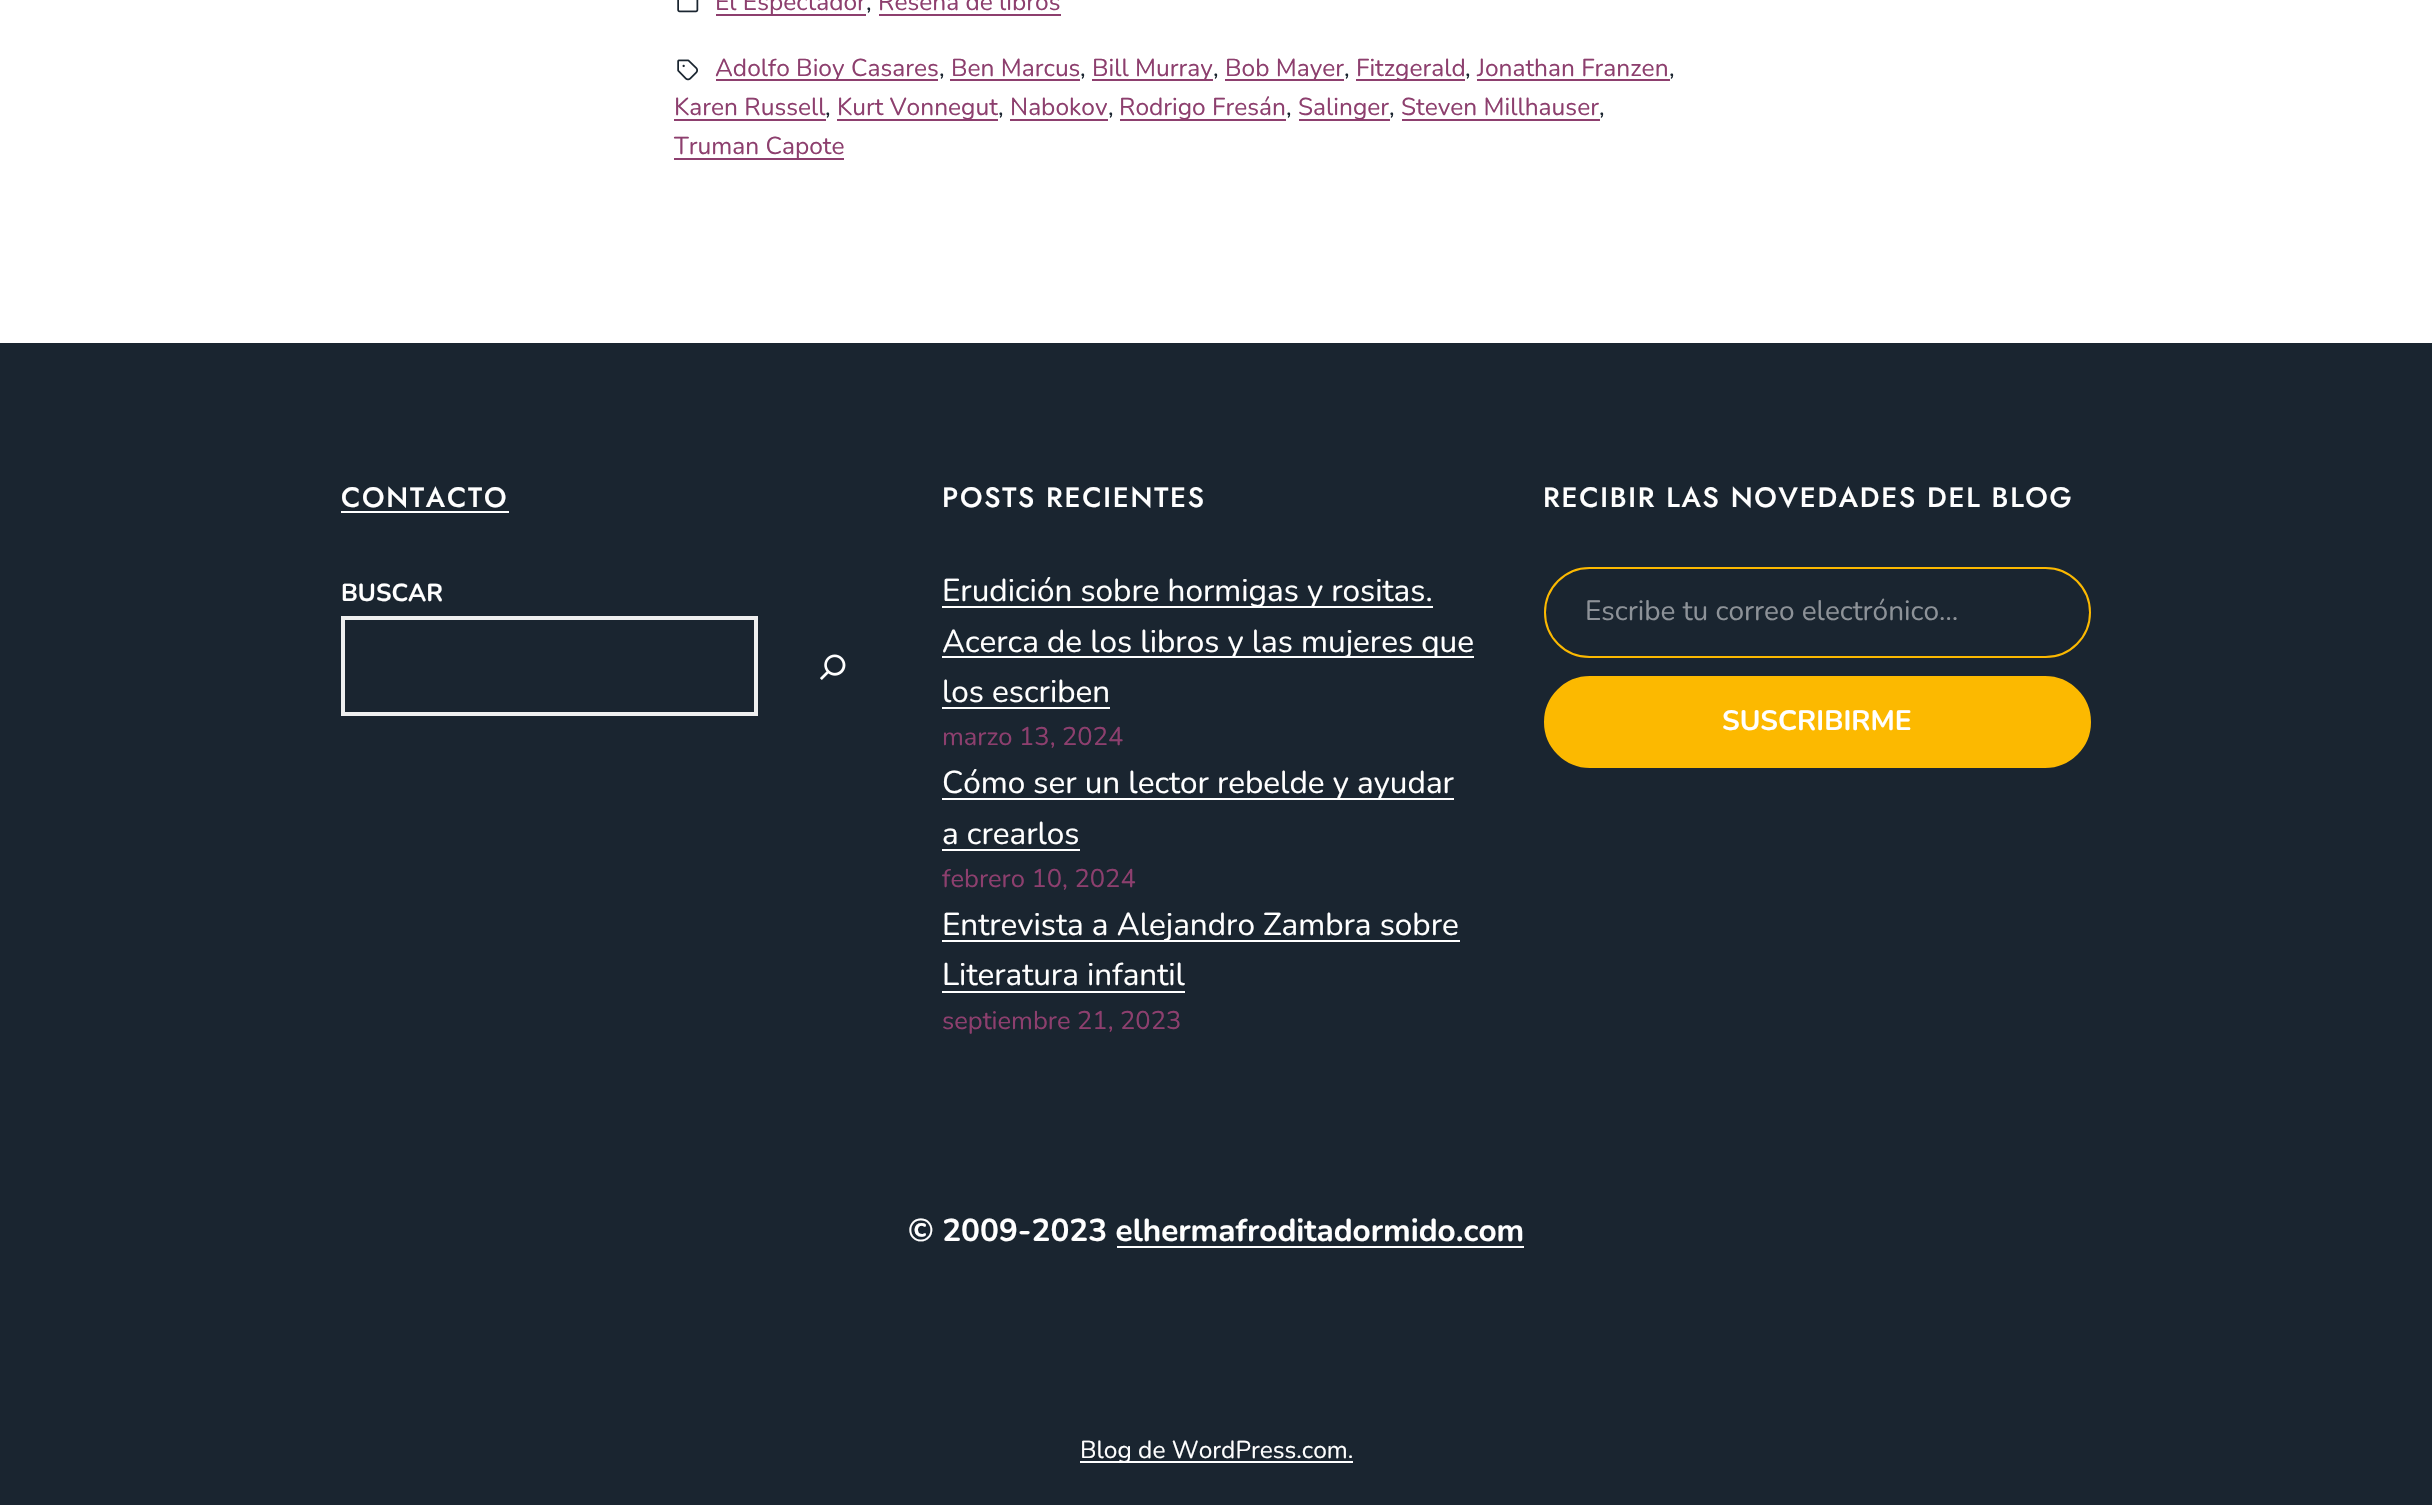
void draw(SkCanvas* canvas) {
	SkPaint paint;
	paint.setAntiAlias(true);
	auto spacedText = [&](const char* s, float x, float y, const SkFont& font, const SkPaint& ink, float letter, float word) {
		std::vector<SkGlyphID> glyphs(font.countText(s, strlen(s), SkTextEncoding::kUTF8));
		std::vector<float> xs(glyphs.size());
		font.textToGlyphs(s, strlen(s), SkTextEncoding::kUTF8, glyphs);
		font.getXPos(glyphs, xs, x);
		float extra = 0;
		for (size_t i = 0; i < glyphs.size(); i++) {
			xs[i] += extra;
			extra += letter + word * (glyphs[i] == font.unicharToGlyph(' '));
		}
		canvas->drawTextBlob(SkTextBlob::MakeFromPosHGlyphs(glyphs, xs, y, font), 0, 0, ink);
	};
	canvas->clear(0xffffffff);
	canvas->drawImageRect(SkImages::DeferredFromEncodedData(SkData::MakeFromFileName("img1.png")), SkRect::MakeXYWH(677, 0, 22, 13), SkSamplingOptions());
	paint.setColor(0xff8d3f6e);
	canvas->drawRect(SkRect::MakeXYWH(716, 14, 150, 2), paint);
	SkFont f1(fontMgr->matchFamilyStyle("Nunito", SkFontStyle::Normal()), 24.5);
	f1.setSubpixel(true);
	canvas->drawString("El Espectador", 715, 10, f1, paint);
	paint.setColor(0xff1a2530);
	canvas->drawString(",", 866, 10, f1, paint);
	paint.setColor(0xff8d3f6e);
	canvas->drawString("Reseña de libros", 878, 10, f1, paint);
	canvas->drawRect(SkRect::MakeXYWH(879, 14, 182, 2), paint);
	canvas->drawImageRect(SkImages::DeferredFromEncodedData(SkData::MakeFromFileName("img2.png")), SkRect::MakeXYWH(677, 59, 21, 22), SkSamplingOptions());
	canvas->drawRect(SkRect::MakeXYWH(716, 79, 222, 2), paint);
	canvas->drawString("Adolfo Bioy Casares", 715, 76, f1, paint);
	paint.setColor(0xff1a2530);
	canvas->drawString(",", 939, 76, f1, paint);
	paint.setColor(0xff8d3f6e);
	canvas->drawString("Ben Marcus", 951, 76, f1, paint);
	canvas->drawRect(SkRect::MakeXYWH(950, 79, 130, 2), paint);
	paint.setColor(0xff1a2530);
	canvas->drawString(",", 1080, 76, f1, paint);
	paint.setColor(0xff8d3f6e);
	canvas->drawRect(SkRect::MakeXYWH(1092, 79, 121, 2), paint);
	canvas->drawString("Bill Murray", 1092, 76, f1, paint);
	paint.setColor(0xff1a2530);
	canvas->drawString(",", 1213, 76, f1, paint);
	paint.setColor(0xff8d3f6e);
	canvas->drawRect(SkRect::MakeXYWH(1225, 79, 119, 2), paint);
	canvas->drawString("Bob Mayer", 1225, 76, f1, paint);
	paint.setColor(0xff1a2530);
	canvas->drawString(",", 1344, 76, f1, paint);
	paint.setColor(0xff8d3f6e);
	canvas->drawRect(SkRect::MakeXYWH(1356, 79, 109, 2), paint);
	canvas->drawString("Fitzgerald", 1356, 76, f1, paint);
	paint.setColor(0xff1a2530);
	canvas->drawString(",", 1465, 76, f1, paint);
	paint.setColor(0xff8d3f6e);
	canvas->drawString("Jonathan Franzen", 1477, 76, f1, paint);
	canvas->drawRect(SkRect::MakeXYWH(1477, 79, 193, 2), paint);
	paint.setColor(0xff1a2530);
	canvas->drawString(",", 1669, 76, f1, paint);
	paint.setColor(0xff8d3f6e);
	canvas->drawString("Karen Russell", 674, 115, f1, paint);
	canvas->drawRect(SkRect::MakeXYWH(674, 119, 152, 2), paint);
	paint.setColor(0xff1a2530);
	canvas->drawString(",", 825, 115, f1, paint);
	paint.setColor(0xff8d3f6e);
	canvas->drawRect(SkRect::MakeXYWH(837, 119, 161, 2), paint);
	canvas->drawString("Kurt Vonnegut", 837, 115, f1, paint);
	paint.setColor(0xff1a2530);
	canvas->drawString(",", 998, 115, f1, paint);
	paint.setColor(0xff8d3f6e);
	canvas->drawString("Nabokov", 1010, 115, f1, paint);
	canvas->drawRect(SkRect::MakeXYWH(1010, 119, 98, 2), paint);
	paint.setColor(0xff1a2530);
	canvas->drawString(",", 1108, 115, f1, paint);
	paint.setColor(0xff8d3f6e);
	canvas->drawRect(SkRect::MakeXYWH(1120, 119, 166, 2), paint);
	canvas->drawString("Rodrigo Fresán", 1119, 115, f1, paint);
	paint.setColor(0xff1a2530);
	canvas->drawString(",", 1286, 115, f1, paint);
	paint.setColor(0xff8d3f6e);
	canvas->drawRect(SkRect::MakeXYWH(1299, 119, 91, 2), paint);
	canvas->drawString("Salinger", 1298, 115, f1, paint);
	paint.setColor(0xff1a2530);
	canvas->drawString(",", 1389, 115, f1, paint);
	paint.setColor(0xff8d3f6e);
	canvas->drawString("Steven Millhauser", 1401, 115, f1, paint);
	canvas->drawRect(SkRect::MakeXYWH(1402, 119, 198, 2), paint);
	paint.setColor(0xff1a2530);
	canvas->drawString(",", 1599, 115, f1, paint);
	paint.setColor(0xff8d3f6e);
	canvas->drawRect(SkRect::MakeXYWH(674, 158, 170, 2), paint);
	canvas->drawString("Truman Capote", 674, 154, f1, paint);
	paint.setColor(0xff1a2530);
	canvas->drawRect(SkRect::MakeXYWH(0, 343, 2432, 1162), paint);
	SkFont f2(fontMgr->matchFamilyStyle("Jost", SkFontStyle(500, SkFontStyle::kNormal_Width, SkFontStyle::kUpright_Slant)), 28);
	f2.setSubpixel(true);
	paint.setColor(0xffffffff);
	spacedText("CONTACTO", 341, 507, f2, paint, 1.75, 0);
	canvas->drawRect(SkRect::MakeXYWH(341, 511, 168, 2), paint);
	SkFont f3(fontMgr->matchFamilyStyle("Nunito", SkFontStyle::Bold()), 24.5);
	f3.setSubpixel(true);
	canvas->drawString("BUSCAR", 341, 601, f3, paint);
	paint.setStroke(true);
	paint.setStrokeWidth(4);
	paint.setColor(0xffefefef);
	canvas->drawRect(SkRect::MakeXYWH(343, 618, 413, 96), paint);
	canvas->drawImageRect(SkImages::DeferredFromEncodedData(SkData::MakeFromFileName("img3.png")), SkRect::MakeXYWH(820, 654, 26, 26), SkSamplingOptions());
	paint.setStroke(false);
	paint.setColor(0xffffffff);
	spacedText("POSTS RECIENTES", 942, 507, f2, paint, 1.75, 0);
	canvas->drawRect(SkRect::MakeXYWH(942, 606, 491, 2), paint);
	SkFont f4(fontMgr->matchFamilyStyle("Nunito", SkFontStyle::Normal()), 31.5);
	f4.setSubpixel(true);
	canvas->drawString("Erudición sobre hormigas y rositas.", 942, 601, f4, paint);
	canvas->drawRect(SkRect::MakeXYWH(942, 656, 532, 2), paint);
	canvas->drawString("Acerca de los libros y las mujeres que", 942, 652, f4, paint);
	canvas->drawString("los escriben", 942, 702, f4, paint);
	canvas->drawRect(SkRect::MakeXYWH(942, 707, 168, 2), paint);
	SkFont f5(fontMgr->matchFamilyStyle("Nunito", SkFontStyle::Normal()), 25.5);
	f5.setSubpixel(true);
	paint.setColor(0xff8d3f6e);
	canvas->drawString("marzo 13, 2024", 942, 745, f5, paint);
	paint.setColor(0xffffffff);
	canvas->drawRect(SkRect::MakeXYWH(942, 798, 512, 2), paint);
	canvas->drawString("Cómo ser un lector rebelde y ayudar", 942, 793, f4, paint);
	canvas->drawString("a crearlos", 942, 844, f4, paint);
	canvas->drawRect(SkRect::MakeXYWH(942, 849, 138, 2), paint);
	paint.setColor(0xff8d3f6e);
	canvas->drawString("febrero 10, 2024", 942, 887, f5, paint);
	paint.setColor(0xffffffff);
	canvas->drawRect(SkRect::MakeXYWH(942, 940, 518, 2), paint);
	canvas->drawString("Entrevista a Alejandro Zambra sobre", 942, 935, f4, paint);
	canvas->drawString("Literatura infantil", 942, 985, f4, paint);
	canvas->drawRect(SkRect::MakeXYWH(942, 991, 243, 2), paint);
	paint.setColor(0xff8d3f6e);
	canvas->drawString("septiembre 21, 2023", 942, 1029, f5, paint);
	paint.setColor(0xffffffff);
	spacedText("RECIBIR LAS NOVEDADES DEL BLOG", 1543, 507, f2, paint, 1.75, 0);
	paint.setStroke(true);
	paint.setStrokeWidth(2);
	paint.setColor(0xfffcb900);
	canvas->drawRoundRect(SkRect::MakeXYWH(1545, 568, 545, 89), 44.5, 44.5, paint);
	SkFont f6(fontMgr->matchFamilyStyle("Nunito", SkFontStyle::Normal()), 28);
	f6.setSubpixel(true);
	paint.setStroke(false);
	paint.setColor(0xff8d9298);
	canvas->drawString("Escribe tu correo electrónico…", 1585, 620, f6, paint);
	paint.setColor(0xfffcb900);
	canvas->drawRoundRect(SkRect::MakeXYWH(1545, 677, 545, 90), 45, 45, paint);
	paint.setStroke(true);
	canvas->drawRoundRect(SkRect::MakeXYWH(1545, 677, 545, 90), 45, 45, paint);
	SkFont f7(fontMgr->matchFamilyStyle("Nunito", SkFontStyle::Bold()), 28);
	f7.setSubpixel(true);
	paint.setStroke(false);
	paint.setColor(0xffffffff);
	canvas->drawString("SUSCRIBIRME", 1722, 730, f7, paint);
	SkFont f8(fontMgr->matchFamilyStyle("Nunito", SkFontStyle::Bold()), 31.5);
	f8.setSubpixel(true);
	canvas->drawString("© 2009-2023 elhermafroditadormido.com", 908, 1241, f8, paint);
	canvas->drawRect(SkRect::MakeXYWH(1117, 1246, 407, 2), paint);
	canvas->drawRect(SkRect::MakeXYWH(1080, 1461, 273, 2), paint);
	canvas->drawString("Blog de WordPress.com.", 1080, 1458, f1, paint);
}
